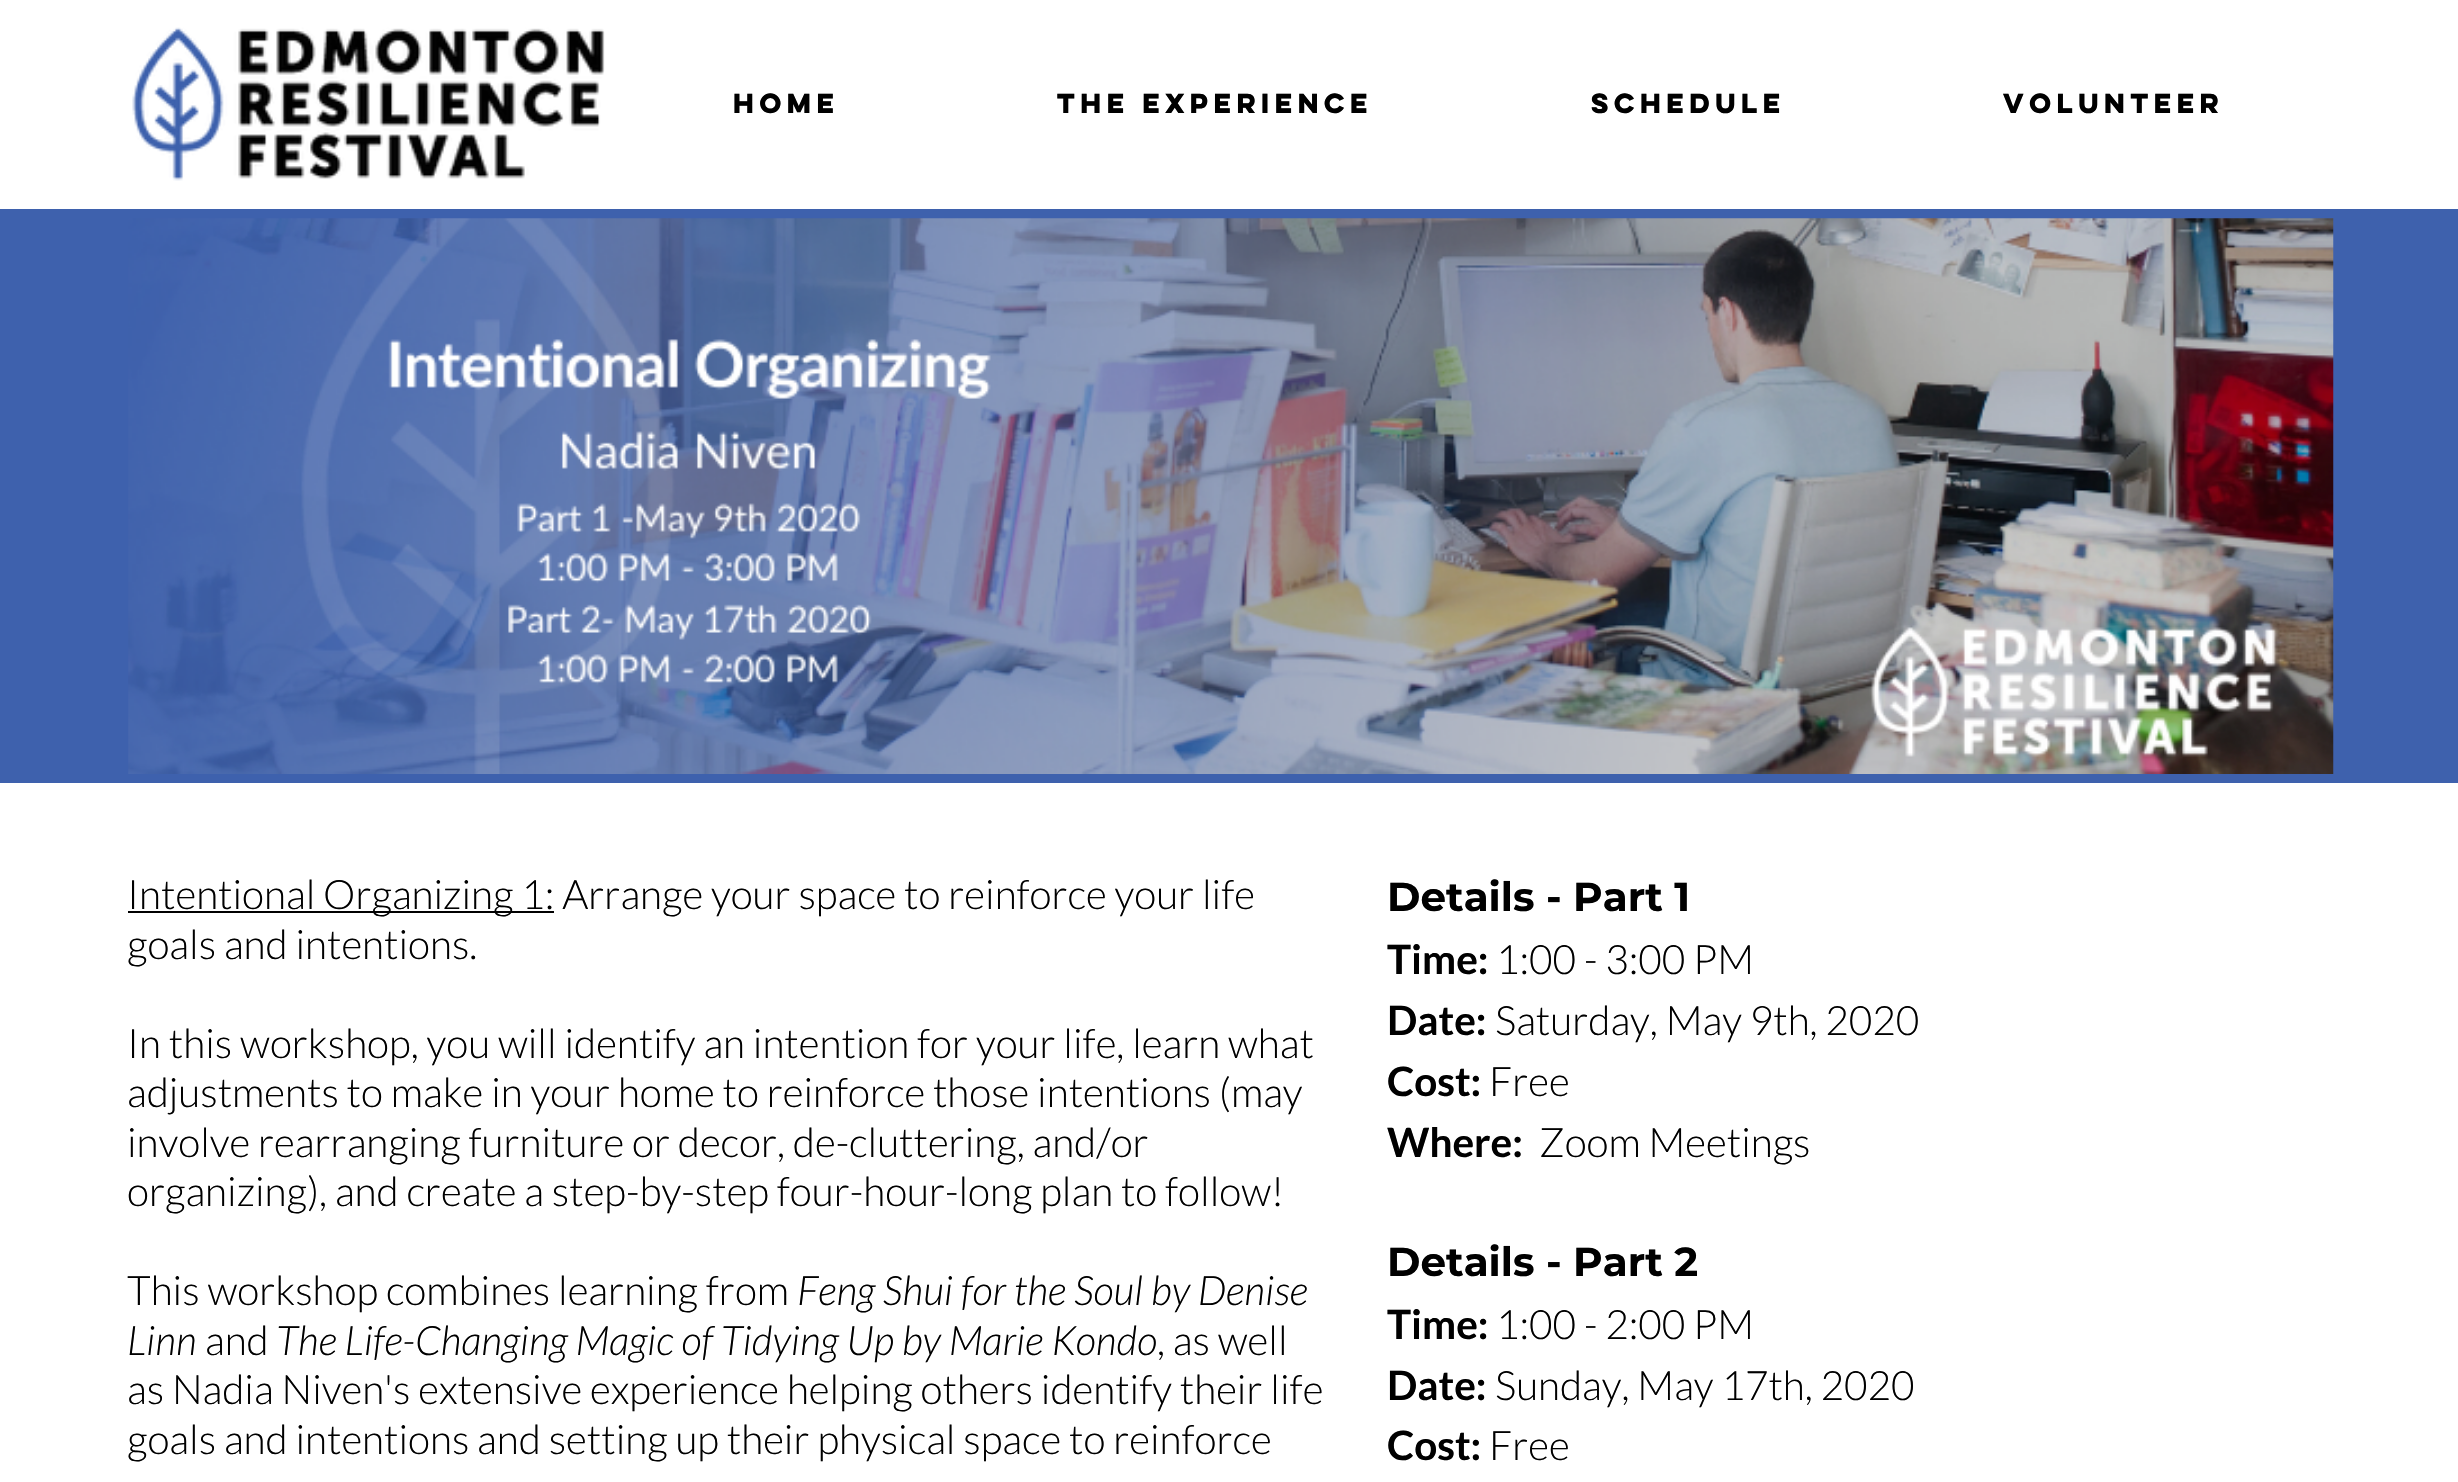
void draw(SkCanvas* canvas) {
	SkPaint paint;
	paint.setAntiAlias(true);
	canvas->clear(0xffffffff);
	canvas->drawImageRect(SkImages::DeferredFromEncodedData(SkData::MakeFromFileName("img1.png")), SkRect::MakeXYWH(132, 27, 473, 154), SkSamplingOptions());
	SkFont f1(fontMgr->matchFamilyStyle("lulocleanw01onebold", SkFontStyle::Bold()), 24.75);
	f1.setSubpixel(true);
	paint.setColor(0xff000000);
	canvas->drawString("Home", 733, 113, f1, paint);
	canvas->drawString("The Experience", 1057, 113, f1, paint);
	canvas->drawString("Schedule", 1591, 113, f1, paint);
	canvas->drawString("Volunteer", 2003, 113, f1, paint);
	paint.setColor(0xff3e61ad);
	canvas->drawRect(SkRect::MakeXYWH(0, 209, 2458, 574), paint);
	canvas->drawImageRect(SkImages::DeferredFromEncodedData(SkData::MakeFromFileName("img2.png")), SkRect::MakeXYWH(128, 218, 2206, 556), SkSamplingOptions());
	paint.setColor(0xff000000);
	canvas->drawRect(SkRect::MakeXYWH(128, 911, 426, 2), paint);
	SkFont f2(fontMgr->matchFamilyStyle("Lato", SkFontStyle(300, SkFontStyle::kNormal_Width, SkFontStyle::kUpright_Slant)), 40.5);
	f2.setSubpixel(true);
	canvas->drawString("Intentional Organizing 1: Arrange your space to reinforce your life", 127, 909, f2, paint);
	canvas->drawString("goals and intentions.", 127, 959, f2, paint);
	canvas->drawString("In this workshop, you will identify an intention for your life, learn what", 127, 1058, f2, paint);
	canvas->drawString("adjustments to make in your home to reinforce those intentions (may", 127, 1107, f2, paint);
	canvas->drawString("involve rearranging furniture or decor, de-cluttering, and/or", 127, 1157, f2, paint);
	canvas->drawString("organizing), and create a step-by-step four-hour-long plan to follow!", 127, 1206, f2, paint);
	canvas->drawString("This workshop combines learning from", 127, 1305, f2, paint);
	SkFont f3(fontMgr->matchFamilyStyle("Lato", SkFontStyle(300, SkFontStyle::kNormal_Width, SkFontStyle::kItalic_Slant)), 40.5);
	f3.setSubpixel(true);
	canvas->drawString("Feng Shui for the Soul by Denise", 797, 1305, f3, paint);
	canvas->drawString("Linn", 127, 1355, f3, paint);
	canvas->drawString("and", 205, 1355, f2, paint);
	canvas->drawString("The Life-Changing Magic of Tidying Up by Marie Kondo", 276, 1355, f3, paint);
	canvas->drawString(", as well", 1157, 1355, f2, paint);
	canvas->drawString("as Nadia Niven's extensive experience helping others identify their life", 127, 1404, f2, paint);
	canvas->drawString("goals and intentions and setting up their physical space to reinforce", 127, 1454, f2, paint);
	SkFont f4(fontMgr->matchFamilyStyle("Montserrat", SkFontStyle::Bold()), 40.5);
	f4.setSubpixel(true);
	canvas->drawString("Details - Part 1", 1387, 911, f4, paint);
	SkFont f5(fontMgr->matchFamilyStyle("Lato", SkFontStyle::Bold()), 40.5);
	f5.setSubpixel(true);
	canvas->drawString("Time:", 1387, 974, f5, paint);
	canvas->drawString("1:00 - 3:00 PM", 1496, 974, f2, paint);
	canvas->drawString("Date:", 1387, 1035, f5, paint);
	canvas->drawString("Saturday, May 9th, 2020", 1495, 1035, f2, paint);
	canvas->drawString("Cost:", 1387, 1096, f5, paint);
	canvas->drawString("Free", 1489, 1096, f2, paint);
	canvas->drawString("Where:", 1387, 1157, f5, paint);
	canvas->drawString("Zoom Meetings", 1539, 1157, f2, paint);
	canvas->drawString("Details - Part 2", 1387, 1276, f4, paint);
	canvas->drawString("Time:", 1387, 1339, f5, paint);
	canvas->drawString("1:00 - 2:00 PM", 1496, 1339, f2, paint);
	canvas->drawString("Date:", 1387, 1400, f5, paint);
	canvas->drawString("Sunday, May 17th, 2020", 1495, 1400, f2, paint);
	canvas->drawString("Cost:", 1387, 1460, f5, paint);
	canvas->drawString("Free", 1489, 1460, f2, paint);
}
